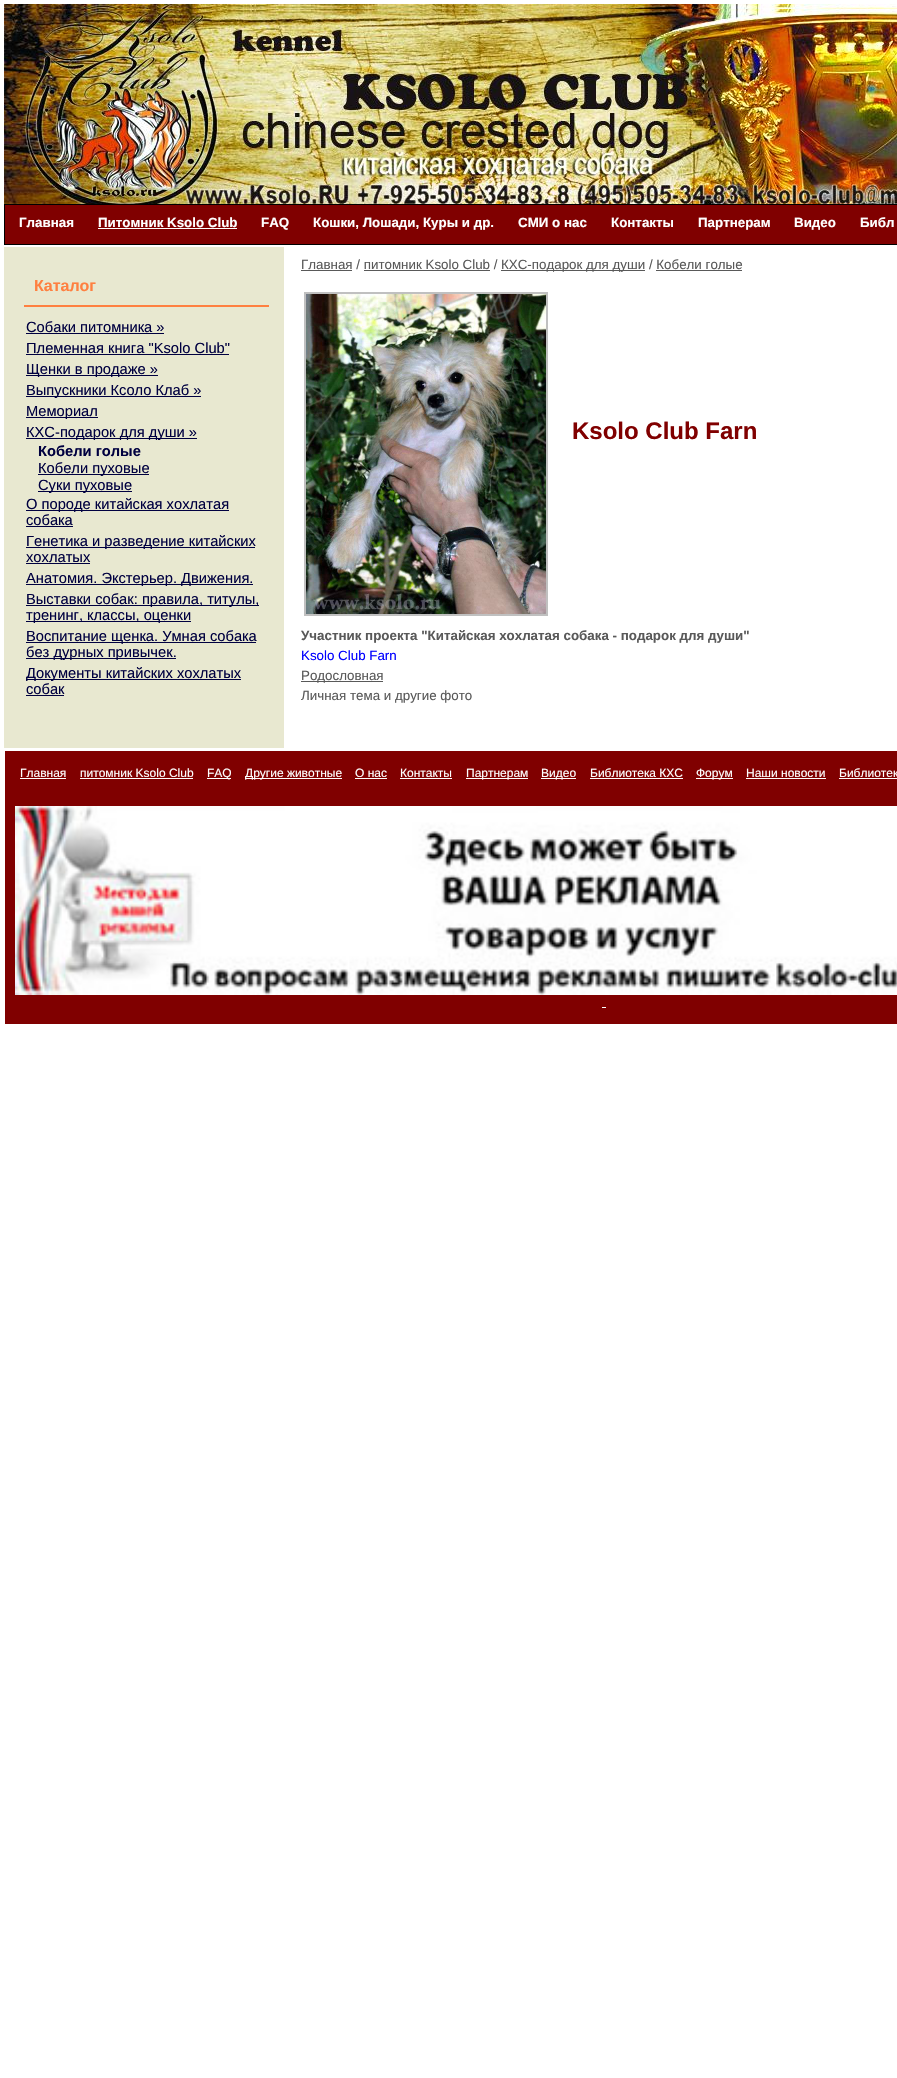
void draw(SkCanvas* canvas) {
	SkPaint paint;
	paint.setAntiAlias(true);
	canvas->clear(0xffffffff);
	canvas->drawImageRect(SkImages::DeferredFromEncodedData(SkData::MakeFromFileName("img1.png")), SkRect::MakeXYWH(4, 4, 893, 5), SkSamplingOptions());
	canvas->drawImageRect(SkImages::DeferredFromEncodedData(SkData::MakeFromFileName("img2.png")), SkRect::MakeXYWH(4, 9, 893, 195), SkSamplingOptions());
	paint.setColor(0xff800000);
	canvas->drawRect(SkRect::MakeXYWH(4.5, 204.5, 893, 40), paint);
	paint.setStroke(true);
	paint.setStrokeWidth(1);
	paint.setColor(0xff000000);
	canvas->drawRect(SkRect::MakeXYWH(4.5, 204.5, 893, 40), paint);
	SkFont f1(fontMgr->matchFamilyStyle("Liberation Sans", SkFontStyle::Bold()), 13.35);
	f1.setSubpixel(true);
	paint.setStroke(false);
	paint.setColor(0xffffffff);
	canvas->drawString("Главная", 19, 227, f1, paint);
	canvas->drawString("Питомник Ksolo Club", 98, 227, f1, paint);
	canvas->drawRect(SkRect::MakeXYWH(98, 228, 139, 1), paint);
	canvas->drawString("FAQ", 261, 227, f1, paint);
	canvas->drawString("Кошки, Лошади, Куры и др.", 313, 227, f1, paint);
	canvas->drawString("СМИ о нас", 518, 227, f1, paint);
	canvas->drawString("Контакты", 611, 227, f1, paint);
	canvas->drawString("Партнерам", 698, 227, f1, paint);
	canvas->drawString("Видео", 794, 227, f1, paint);
	canvas->drawString("Библ", 860, 227, f1, paint);
	paint.setColor(0xffe8e8d0);
	canvas->drawRect(SkRect::MakeXYWH(4, 247, 280, 501), paint);
	paint.setColor(0xffff8040);
	canvas->drawRect(SkRect::MakeXYWH(24, 305, 245, 2), paint);
	SkFont f2(fontMgr->matchFamilyStyle("Liberation Sans", SkFontStyle::Bold()), 16);
	f2.setSubpixel(true);
	canvas->drawString("Каталог", 34, 291, f2, paint);
	SkFont f3(fontMgr->matchFamilyStyle("Liberation Sans", SkFontStyle::Normal()), 14.7);
	f3.setSubpixel(true);
	paint.setColor(0xff000040);
	canvas->drawString("Собаки питомника »", 26, 332, f3, paint);
	canvas->drawRect(SkRect::MakeXYWH(26, 333, 138, 1), paint);
	canvas->drawString("Племенная книга \"Ksolo Club\"", 26, 353, f3, paint);
	canvas->drawRect(SkRect::MakeXYWH(26, 354, 203, 1), paint);
	canvas->drawRect(SkRect::MakeXYWH(26, 375, 132, 1), paint);
	canvas->drawString("Щенки в продаже »", 26, 374, f3, paint);
	canvas->drawRect(SkRect::MakeXYWH(26, 396, 175, 1), paint);
	canvas->drawString("Выпускники Ксоло Клаб »", 26, 395, f3, paint);
	canvas->drawRect(SkRect::MakeXYWH(26, 417, 72, 1), paint);
	canvas->drawString("Мемориал", 26, 416, f3, paint);
	canvas->drawRect(SkRect::MakeXYWH(26, 438, 171, 1), paint);
	canvas->drawString("КХС-подарок для души »", 26, 437, f3, paint);
	SkFont f4(fontMgr->matchFamilyStyle("Liberation Sans", SkFontStyle::Bold()), 14.7);
	f4.setSubpixel(true);
	canvas->drawString("Кобели голые", 38, 456, f4, paint);
	canvas->drawRect(SkRect::MakeXYWH(38, 474, 111, 1), paint);
	canvas->drawString("Кобели пуховые", 38, 473, f3, paint);
	canvas->drawRect(SkRect::MakeXYWH(38, 491, 94, 1), paint);
	canvas->drawString("Суки пуховые", 38, 490, f3, paint);
	canvas->drawRect(SkRect::MakeXYWH(26, 510, 203, 1), paint);
	canvas->drawString("О породе китайская хохлатая", 26, 509, f3, paint);
	canvas->drawString("собака", 26, 525, f3, paint);
	canvas->drawRect(SkRect::MakeXYWH(26, 526, 47, 1), paint);
	canvas->drawRect(SkRect::MakeXYWH(26, 547, 229, 1), paint);
	canvas->drawString("Генетика и разведение китайских", 26, 546, f3, paint);
	canvas->drawString("хохлатых", 26, 562, f3, paint);
	canvas->drawRect(SkRect::MakeXYWH(26, 563, 64, 1), paint);
	canvas->drawRect(SkRect::MakeXYWH(26, 584, 227, 1), paint);
	canvas->drawString("Анатомия. Экстерьер. Движения.", 26, 583, f3, paint);
	canvas->drawRect(SkRect::MakeXYWH(26, 605, 233, 1), paint);
	canvas->drawString("Выставки собак: правила, титулы,", 26, 604, f3, paint);
	canvas->drawRect(SkRect::MakeXYWH(26, 621, 165, 1), paint);
	canvas->drawString("тренинг, классы, оценки", 26, 620, f3, paint);
	canvas->drawRect(SkRect::MakeXYWH(26, 642, 230, 1), paint);
	canvas->drawString("Воспитание щенка. Умная собака", 26, 641, f3, paint);
	canvas->drawRect(SkRect::MakeXYWH(26, 658, 150, 1), paint);
	canvas->drawString("без дурных привычек.", 26, 657, f3, paint);
	canvas->drawRect(SkRect::MakeXYWH(26, 679, 215, 1), paint);
	canvas->drawString("Документы китайских хохлатых", 26, 678, f3, paint);
	canvas->drawString("собак", 26, 694, f3, paint);
	canvas->drawRect(SkRect::MakeXYWH(26, 695, 38, 1), paint);
	SkFont f5(fontMgr->matchFamilyStyle("Liberation Sans", SkFontStyle::Normal()), 13.35);
	f5.setSubpixel(true);
	paint.setColor(0xff595959);
	canvas->drawString("Главная / питомник Ksolo Club /", 301, 269, f5, paint);
	canvas->drawRect(SkRect::MakeXYWH(301, 270, 51, 1), paint);
	canvas->drawRect(SkRect::MakeXYWH(501, 270, 144, 1), paint);
	canvas->drawString("КХС-подарок для души / Кобели голые", 501, 269, f5, paint);
	canvas->drawRect(SkRect::MakeXYWH(364, 270, 126, 1), paint);
	canvas->drawRect(SkRect::MakeXYWH(656, 270, 86, 1), paint);
	paint.setStroke(true);
	paint.setStrokeWidth(2);
	paint.setColor(0xffc0c0c0);
	canvas->drawRect(SkRect::MakeXYWH(305, 293, 242, 322), paint);
	canvas->drawImageRect(SkImages::DeferredFromEncodedData(SkData::MakeFromFileName("img3.png")), SkRect::MakeXYWH(306, 294, 240, 320), SkSamplingOptions());
	SkFont f6(fontMgr->matchFamilyStyle("Liberation Sans", SkFontStyle::Bold()), 24);
	f6.setSubpixel(true);
	paint.setStroke(false);
	paint.setColor(0xff800000);
	canvas->drawString("Ksolo Club Farn", 572, 439, f6, paint);
	paint.setColor(0xff595959);
	canvas->drawString("Участник проекта \"Китайская хохлатая собака - подарок для души\"", 301, 640, f1, paint);
	paint.setColor(0xff0000ff);
	canvas->drawString("Ksolo Club Farn", 301, 660, f5, paint);
	paint.setColor(0xff595959);
	canvas->drawRect(SkRect::MakeXYWH(301, 681, 82, 1), paint);
	canvas->drawString("Родословная", 301, 680, f5, paint);
	canvas->drawString("Личная тема и другие фото", 301, 700, f5, paint);
	paint.setColor(0xff800000);
	canvas->drawRect(SkRect::MakeXYWH(5, 751, 892, 273), paint);
	SkFont f7(fontMgr->matchFamilyStyle("Liberation Sans", SkFontStyle::Normal()), 12);
	f7.setSubpixel(true);
	paint.setColor(0xffffffff);
	canvas->drawString("Главная", 20, 777, f7, paint);
	canvas->drawRect(SkRect::MakeXYWH(20, 778, 46, 1), paint);
	canvas->drawString("питомник Ksolo Club", 80, 777, f7, paint);
	canvas->drawRect(SkRect::MakeXYWH(80, 778, 113, 1), paint);
	canvas->drawRect(SkRect::MakeXYWH(207, 778, 24, 1), paint);
	canvas->drawString("FAQ", 207, 777, f7, paint);
	canvas->drawRect(SkRect::MakeXYWH(245, 778, 97, 1), paint);
	canvas->drawString("Другие животные", 245, 777, f7, paint);
	canvas->drawString("О нас", 355, 777, f7, paint);
	canvas->drawRect(SkRect::MakeXYWH(355, 778, 32, 1), paint);
	canvas->drawString("Контакты", 400, 777, f7, paint);
	canvas->drawRect(SkRect::MakeXYWH(400, 778, 52, 1), paint);
	canvas->drawRect(SkRect::MakeXYWH(466, 778, 62, 1), paint);
	canvas->drawString("Партнерам", 466, 777, f7, paint);
	canvas->drawRect(SkRect::MakeXYWH(541, 778, 35, 1), paint);
	canvas->drawString("Видео", 541, 777, f7, paint);
	canvas->drawString("Библиотека КХС", 590, 777, f7, paint);
	canvas->drawRect(SkRect::MakeXYWH(590, 778, 93, 1), paint);
	canvas->drawRect(SkRect::MakeXYWH(696, 778, 37, 1), paint);
	canvas->drawString("Форум", 696, 777, f7, paint);
	canvas->drawString("Наши новости", 746, 777, f7, paint);
	canvas->drawRect(SkRect::MakeXYWH(746, 778, 80, 1), paint);
	canvas->drawString("Библиотек", 839, 777, f7, paint);
	canvas->drawRect(SkRect::MakeXYWH(839, 778, 58, 1), paint);
	canvas->drawImageRect(SkImages::DeferredFromEncodedData(SkData::MakeFromFileName("img4.png")), SkRect::MakeXYWH(15, 806, 882, 189), SkSamplingOptions());
	canvas->drawRect(SkRect::MakeXYWH(602, 1007, 4, 1), paint);
}
